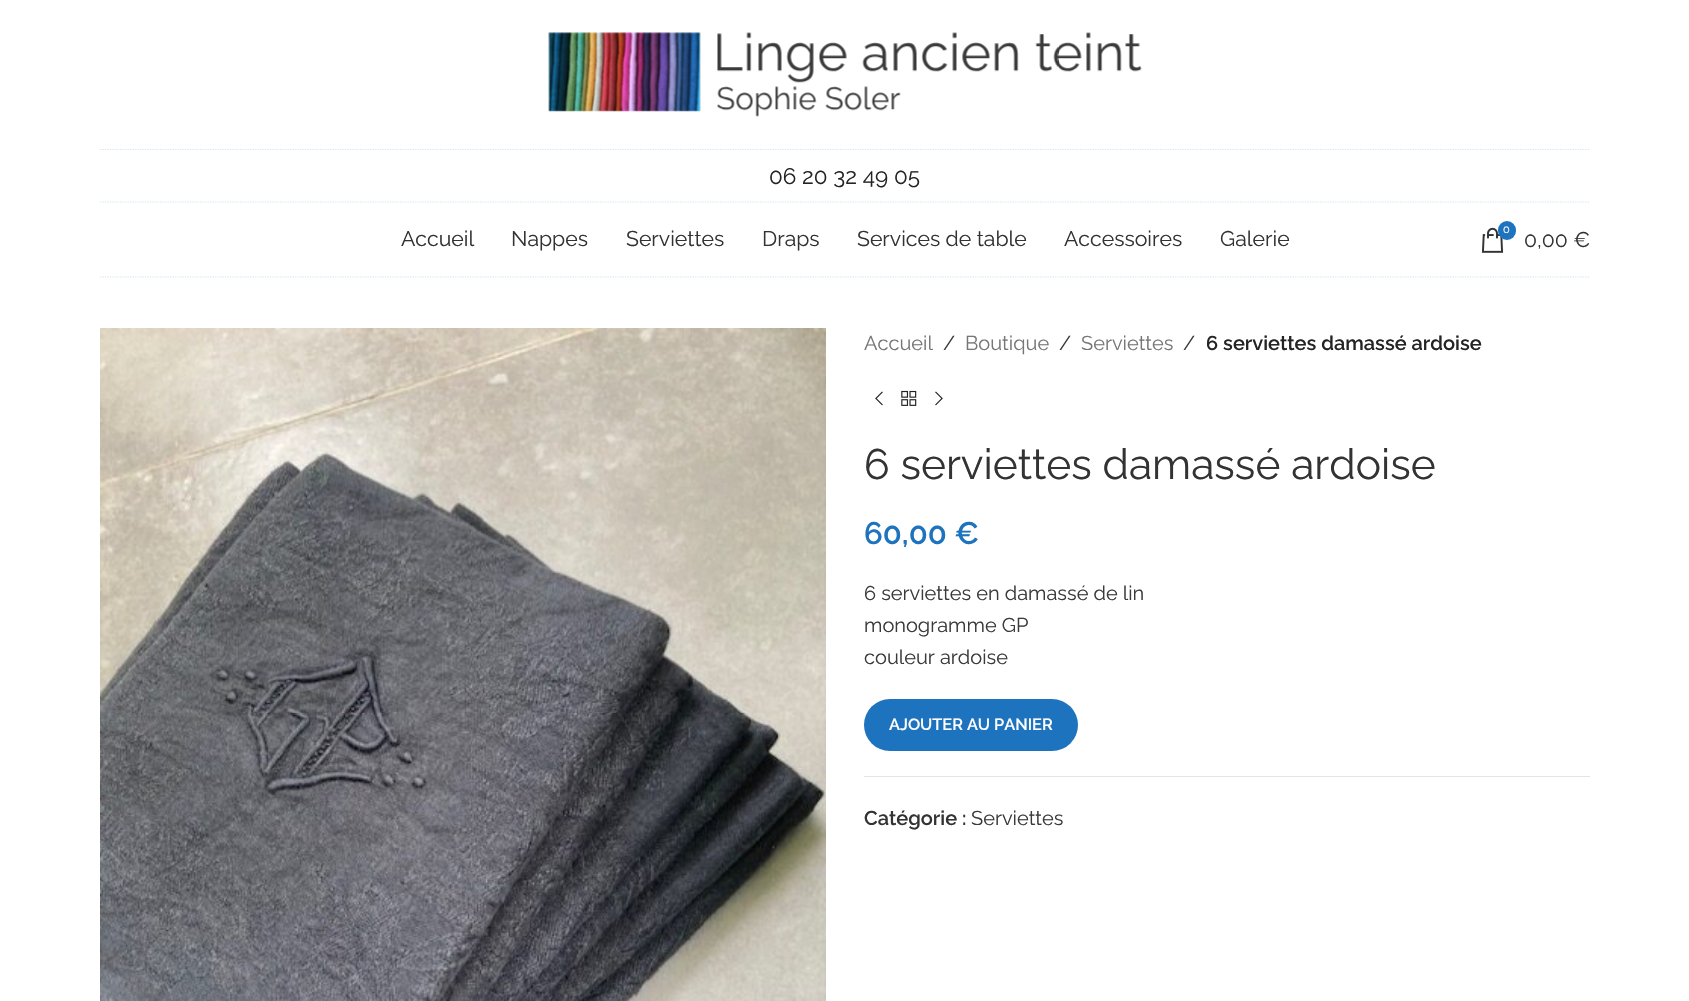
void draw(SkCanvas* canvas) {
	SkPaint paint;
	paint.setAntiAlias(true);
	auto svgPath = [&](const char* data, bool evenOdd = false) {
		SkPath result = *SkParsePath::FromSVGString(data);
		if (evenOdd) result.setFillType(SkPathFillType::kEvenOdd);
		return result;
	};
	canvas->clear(0xffffffff);
	paint.setStroke(true);
	paint.setStrokeWidth(1.2);
	paint.setColor(0xffd0e3f2);
	paint.setPathEffect(SkDashPathEffect::Make({{1.25f, 1.25f}}, 0));
	canvas->drawPath(svgPath("M100 149.5H1590"), paint);
	paint.setPathEffect(nullptr);
	canvas->drawImageRect(SkImages::DeferredFromEncodedData(SkData::MakeFromFileName("img1.png")), SkRect::MakeXYWH(548, 32, 594, 85), SkSamplingOptions());
	paint.setStroke(false);
	paint.setColor(0xffffffff);
	canvas->drawRect(SkRect::MakeXYWH(100, 150, 1489, 1), paint);
	paint.setStroke(true);
	paint.setColor(0xffd0e3f2);
	paint.setPathEffect(SkDashPathEffect::Make({{1.25f, 1.25f}}, 0));
	canvas->drawPath(svgPath("M100 202H1590"), paint);
	paint.setPathEffect(nullptr);
	SkFont f1(fontMgr->matchFamilyStyle("Raleway", SkFontStyle::Normal()), 22.5);
	f1.setSubpixel(true);
	paint.setStroke(false);
	paint.setColor(0xff242424);
	canvas->drawString("06 20 32 49 05", 769, 184, f1, paint);
	paint.setStroke(true);
	paint.setColor(0xffd0e3f2);
	paint.setPathEffect(SkDashPathEffect::Make({{1.25f, 1.25f}}, 0));
	canvas->drawPath(svgPath("M100 277H1590"), paint);
	paint.setPathEffect(nullptr);
	SkFont f2(fontMgr->matchFamilyStyle("Raleway", SkFontStyle::Normal()), 21.25);
	f2.setSubpixel(true);
	paint.setStroke(false);
	paint.setColor(0xff333333);
	canvas->drawString("Accueil", 401, 246, f2, paint);
	canvas->drawString("Nappes", 511, 246, f2, paint);
	canvas->drawString("Serviettes", 626, 246, f2, paint);
	canvas->drawString("Draps", 762, 246, f2, paint);
	canvas->drawString("Services de table", 857, 246, f2, paint);
	canvas->drawString("Accessoires", 1064, 246, f2, paint);
	canvas->drawString("Galerie", 1220, 246, f2, paint);
	canvas->drawImageRect(SkImages::DeferredFromEncodedData(SkData::MakeFromFileName("img2.png")), SkRect::MakeXYWH(1481, 227, 23, 26), SkSamplingOptions());
	paint.setColor(0xff1e73be);
	canvas->drawRoundRect(SkRect::MakeXYWH(1498, 221, 18, 19), 9, 9, paint);
	SkFont f3(fontMgr->matchFamilyStyle("Raleway", SkFontStyle::Normal()), 11);
	f3.setSubpixel(true);
	paint.setColor(0xffffffff);
	canvas->drawString("0", 1503, 233, f3, paint);
	paint.setColor(0xff333333);
	canvas->drawString("0,00 €", 1524, 247, f2, paint);
	canvas->drawImageRect(SkImages::DeferredFromEncodedData(SkData::MakeFromFileName("img3.png")), SkRect::MakeXYWH(100, 328, 726, 673), SkSamplingOptions());
	SkFont f4(fontMgr->matchFamilyStyle("Raleway", SkFontStyle::Normal()), 20);
	f4.setSubpixel(true);
	paint.setColor(0xff767676);
	canvas->drawString("Accueil", 864, 350, f4, paint);
	paint.setColor(0xff3a3a3a);
	canvas->drawString("/", 943, 350, f4, paint);
	paint.setColor(0xff767676);
	canvas->drawString("Boutique", 965, 350, f4, paint);
	paint.setColor(0xff3a3a3a);
	canvas->drawString("/", 1059, 350, f4, paint);
	paint.setColor(0xff767676);
	canvas->drawString("Serviettes", 1081, 350, f4, paint);
	paint.setColor(0xff3a3a3a);
	canvas->drawString("/", 1183, 350, f4, paint);
	SkFont f5(fontMgr->matchFamilyStyle("Raleway", SkFontStyle(600, SkFontStyle::kNormal_Width, SkFontStyle::kUpright_Slant)), 20);
	f5.setSubpixel(true);
	paint.setColor(0xff242424);
	canvas->drawString("6 serviettes damassé ardoise", 1206, 350, f5, paint);
	canvas->drawImageRect(SkImages::DeferredFromEncodedData(SkData::MakeFromFileName("img4.png")), SkRect::MakeXYWH(875, 391, 8, 15), SkSamplingOptions());
	canvas->drawImageRect(SkImages::DeferredFromEncodedData(SkData::MakeFromFileName("img5.png")), SkRect::MakeXYWH(901, 390, 16, 16), SkSamplingOptions());
	canvas->drawImageRect(SkImages::DeferredFromEncodedData(SkData::MakeFromFileName("img6.png")), SkRect::MakeXYWH(935, 391, 8, 15), SkSamplingOptions());
	SkFont f6(fontMgr->matchFamilyStyle("Raleway", SkFontStyle::Normal()), 42.5);
	f6.setSubpixel(true);
	paint.setColor(0xff333333);
	canvas->drawString("6 serviettes damassé ardoise", 864, 479, f6, paint);
	SkFont f7(fontMgr->matchFamilyStyle("Raleway", SkFontStyle(600, SkFontStyle::kNormal_Width, SkFontStyle::kUpright_Slant)), 31);
	f7.setSubpixel(true);
	paint.setColor(0xff1e73be);
	canvas->drawString("60,00 €", 864, 544, f7, paint);
	paint.setColor(0xff3a3a3a);
	canvas->drawString("6 serviettes en damassé de lin", 864, 600, f4, paint);
	canvas->drawString("monogramme GP", 864, 632, f4, paint);
	canvas->drawString("couleur ardoise", 864, 664, f4, paint);
	paint.setColor(0xff1e73be);
	canvas->drawRoundRect(SkRect::MakeXYWH(864, 699, 214, 52), 26, 26, paint);
	SkFont f8(fontMgr->matchFamilyStyle("Raleway", SkFontStyle(600, SkFontStyle::kNormal_Width, SkFontStyle::kUpright_Slant)), 16.25);
	f8.setSubpixel(true);
	paint.setColor(0xffffffff);
	canvas->drawString("AJOUTER AU PANIER", 889, 730, f8, paint);
	paint.setColor(0xffe4e4e4);
	canvas->drawRect(SkRect::MakeXYWH(864, 776, 726, 1), paint);
	paint.setColor(0xff333333);
	canvas->drawString("Catégorie :", 864, 825, f5, paint);
	paint.setColor(0xff3a3a3a);
	canvas->drawString("Serviettes", 971, 825, f4, paint);
}
